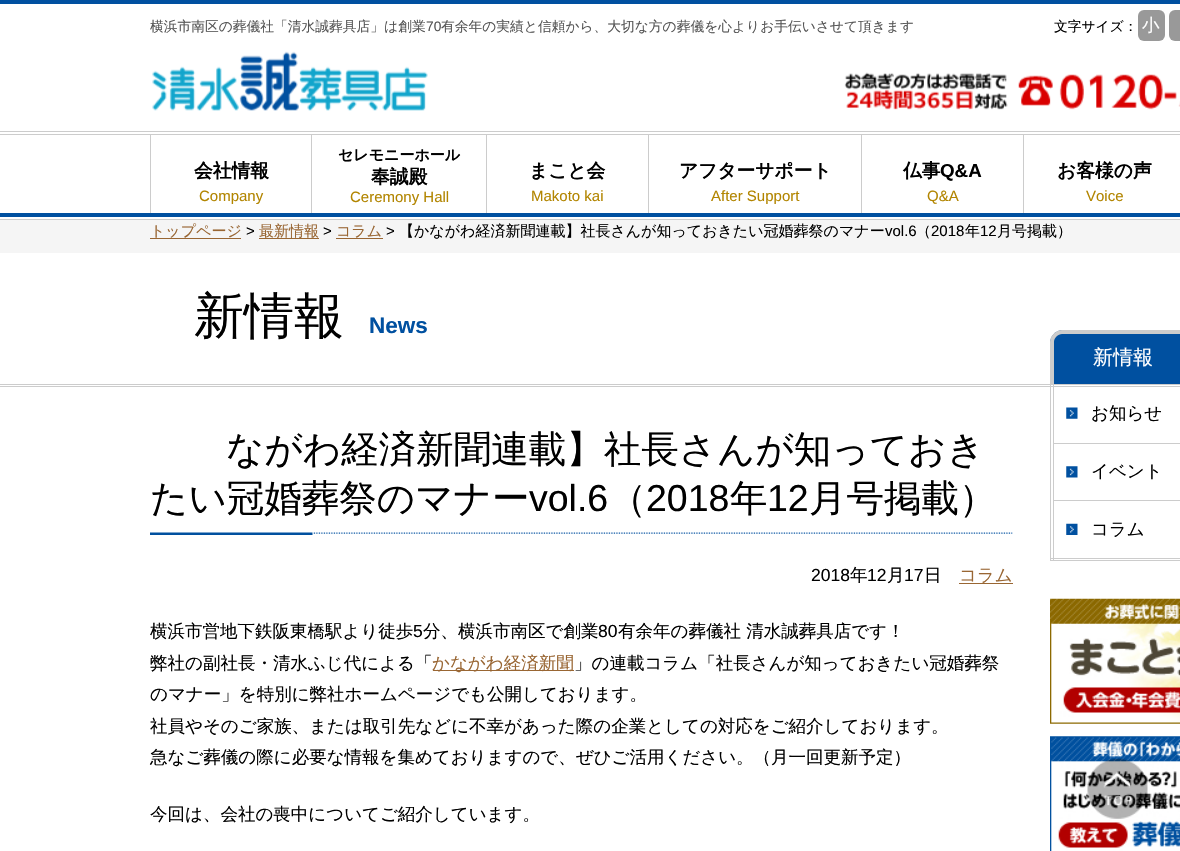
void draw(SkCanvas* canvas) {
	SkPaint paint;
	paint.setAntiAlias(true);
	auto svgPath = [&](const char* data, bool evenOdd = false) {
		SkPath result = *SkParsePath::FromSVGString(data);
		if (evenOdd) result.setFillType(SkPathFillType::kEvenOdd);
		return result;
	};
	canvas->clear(0xffffffff);
	paint.setColor(0xff0050a0);
	canvas->drawRect(SkRect::MakeXYWH(0, 0, 1180, 4), paint);
	paint.setColor(0xffcccccc);
	canvas->drawRect(SkRect::MakeXYWH(0, 219, 1180, 1), paint);
	SkFont f1(fontMgr->matchFamilyStyle("WenQuanYi Zen Hei", SkFontStyle(500, SkFontStyle::kNormal_Width, SkFontStyle::kUpright_Slant)), 13.75);
	f1.setSubpixel(true);
	paint.setColor(0xff555555);
	canvas->drawString("横浜市南区の葬儀社「清水誠葬具店」は創業", 150, 31, f1, paint);
	SkFont f2(fontMgr->matchFamilyStyle("Liberation Sans", SkFontStyle::Normal()), 13.75);
	f2.setSubpixel(true);
	canvas->drawString("70", 426, 31, f2, paint);
	canvas->drawString("有余年の実績と信頼から、大切な方の葬儀を心よりお手伝いさせて頂きます", 441, 31, f1, paint);
	paint.setColor(0xff000000);
	canvas->drawString("文字サイズ：", 1054, 31, f1, paint);
	paint.setColor(0xff999999);
	canvas->drawRoundRect(SkRect::MakeXYWH(1138, 10, 27, 31), 6, 6, paint);
	SkFont f3(fontMgr->matchFamilyStyle("WenQuanYi Zen Hei", SkFontStyle(500, SkFontStyle::kNormal_Width, SkFontStyle::kUpright_Slant)), 17.5);
	f3.setSubpixel(true);
	paint.setColor(0xffffffff);
	canvas->drawString("小", 1142, 31, f3, paint);
	paint.setColor(0xff999999);
	canvas->drawRoundRect(SkRect::MakeXYWH(1169, 10, 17, 31), 6, 6, paint);
	canvas->drawImageRect(SkImages::DeferredFromEncodedData(SkData::MakeFromFileName("img1.png")), SkRect::MakeXYWH(152, 51, 276, 60), SkSamplingOptions());
	canvas->drawImageRect(SkImages::DeferredFromEncodedData(SkData::MakeFromFileName("img2.png")), SkRect::MakeXYWH(844, 72, 336, 38), SkSamplingOptions());
	paint.setColor(0xffcccccc);
	canvas->drawRect(SkRect::MakeXYWH(0, 131, 1180, 1), paint);
	canvas->drawRect(SkRect::MakeXYWH(0, 134, 1180, 1), paint);
	paint.setColor(0xff0050a0);
	canvas->drawRect(SkRect::MakeXYWH(0, 213, 1180, 4), paint);
	paint.setColor(0xffcccccc);
	canvas->drawRect(SkRect::MakeXYWH(150, 135, 1, 78), paint);
	SkFont f4(fontMgr->matchFamilyStyle("WenQuanYi Zen Hei", SkFontStyle::Bold()), 18.75);
	f4.setSubpixel(true);
	paint.setColor(0xff000000);
	canvas->drawString("会社情報", 194, 177, f4, paint);
	SkFont f5(fontMgr->matchFamilyStyle("Liberation Sans", SkFontStyle::Normal()), 15);
	f5.setSubpixel(true);
	paint.setColor(0xffb28500);
	canvas->drawString("Company", 199, 201, f5, paint);
	paint.setColor(0xffcccccc);
	canvas->drawRect(SkRect::MakeXYWH(311, 135, 1, 78), paint);
	SkFont f6(fontMgr->matchFamilyStyle("WenQuanYi Zen Hei", SkFontStyle::Bold()), 15);
	f6.setSubpixel(true);
	paint.setColor(0xff000000);
	canvas->drawString("セレモニーホール", 338, 160, f6, paint);
	canvas->drawString("奉誠殿", 371, 183, f4, paint);
	paint.setColor(0xffb28500);
	canvas->drawString("Ceremony Hall", 350, 202, f5, paint);
	paint.setColor(0xffcccccc);
	canvas->drawRect(SkRect::MakeXYWH(486, 135, 1, 78), paint);
	paint.setColor(0xff000000);
	canvas->drawString("まこと会", 529, 177, f4, paint);
	paint.setColor(0xffb28500);
	canvas->drawString("Makoto kai", 531, 201, f5, paint);
	paint.setColor(0xffcccccc);
	canvas->drawRect(SkRect::MakeXYWH(648, 135, 1, 78), paint);
	paint.setColor(0xff000000);
	canvas->drawString("アフターサポート", 679, 177, f4, paint);
	paint.setColor(0xffb28500);
	canvas->drawString("After Support", 711, 201, f5, paint);
	paint.setColor(0xffcccccc);
	canvas->drawRect(SkRect::MakeXYWH(861, 135, 1, 78), paint);
	paint.setColor(0xff000000);
	canvas->drawString("仏事", 903, 177, f4, paint);
	SkFont f7(fontMgr->matchFamilyStyle("Liberation Sans", SkFontStyle::Bold()), 18.75);
	f7.setSubpixel(true);
	canvas->drawString("Q&A", 940, 177, f7, paint);
	paint.setColor(0xffb28500);
	canvas->drawString("Q&A", 927, 201, f5, paint);
	paint.setColor(0xffcccccc);
	canvas->drawRect(SkRect::MakeXYWH(1023, 135, 1, 78), paint);
	paint.setColor(0xff000000);
	canvas->drawString("お客様の声", 1057, 177, f4, paint);
	paint.setColor(0xffb28500);
	canvas->drawString("Voice", 1086, 201, f5, paint);
	paint.setColor(0xfff5f5f5);
	canvas->drawRect(SkRect::MakeXYWH(0, 220, 1180, 33), paint);
	SkFont f8(fontMgr->matchFamilyStyle("WenQuanYi Zen Hei", SkFontStyle(500, SkFontStyle::kNormal_Width, SkFontStyle::kUpright_Slant)), 15);
	f8.setSubpixel(true);
	paint.setColor(0xff996633);
	canvas->drawString("トップページ", 150, 236, f8, paint);
	canvas->drawRect(SkRect::MakeXYWH(150, 238, 91, 1), paint);
	paint.setColor(0xff000000);
	canvas->drawString(">", 246, 236, f5, paint);
	paint.setColor(0xff996633);
	canvas->drawString("最新情報", 259, 236, f8, paint);
	canvas->drawRect(SkRect::MakeXYWH(259, 238, 60, 1), paint);
	paint.setColor(0xff000000);
	canvas->drawString(">", 323, 236, f5, paint);
	paint.setColor(0xff996633);
	canvas->drawString("コラム", 336, 236, f8, paint);
	canvas->drawRect(SkRect::MakeXYWH(336, 238, 47, 1), paint);
	paint.setColor(0xff000000);
	canvas->drawString(">", 386, 236, f5, paint);
	canvas->drawString("【かながわ経済新聞連載】社長さんが知っておきたい冠婚葬祭のマナー", 399, 236, f8, paint);
	canvas->drawString("vol.6", 885, 236, f5, paint);
	canvas->drawString("（", 916, 236, f8, paint);
	canvas->drawString("2018", 931, 236, f5, paint);
	canvas->drawString("年", 965, 236, f8, paint);
	canvas->drawString("12", 980, 236, f5, paint);
	canvas->drawString("月号掲載）", 997, 236, f8, paint);
	paint.setColor(0xffcccccc);
	canvas->drawRect(SkRect::MakeXYWH(0, 384, 1180, 1), paint);
	canvas->drawRect(SkRect::MakeXYWH(0, 386, 1180, 1), paint);
	SkFont f9(fontMgr->matchFamilyStyle("Noto Sans", SkFontStyle::Normal()), 50);
	f9.setSubpixel(true);
	paint.setColor(0xff0050a0);
	canvas->drawString("最", 144, 333, f9, paint);
	SkFont f10(fontMgr->matchFamilyStyle("WenQuanYi Zen Hei", SkFontStyle(500, SkFontStyle::kNormal_Width, SkFontStyle::kUpright_Slant)), 50);
	f10.setSubpixel(true);
	paint.setColor(0xff000000);
	canvas->drawString("新情報", 194, 333, f10, paint);
	SkFont f11(fontMgr->matchFamilyStyle("Liberation Sans", SkFontStyle::Bold()), 22.5);
	f11.setSubpixel(true);
	paint.setColor(0xff0050a0);
	canvas->drawString("News", 369, 333, f11, paint);
	canvas->drawImageRect(SkImages::DeferredFromEncodedData(SkData::MakeFromFileName("img3.png")), SkRect::MakeXYWH(150, 532, 863, 3), SkSamplingOptions());
	SkFont f12(fontMgr->matchFamilyStyle("Noto Sans", SkFontStyle::Normal()), 37.5);
	f12.setSubpixel(true);
	canvas->drawString("【か", 150, 462, f12, paint);
	SkFont f13(fontMgr->matchFamilyStyle("WenQuanYi Zen Hei", SkFontStyle(500, SkFontStyle::kNormal_Width, SkFontStyle::kUpright_Slant)), 37.5);
	f13.setSubpixel(true);
	paint.setColor(0xff000000);
	canvas->drawString("ながわ経済新聞連載】社長さんが知っておき", 226, 462, f13, paint);
	canvas->drawString("たい冠婚葬祭のマナー", 150, 511, f13, paint);
	SkFont f14(fontMgr->matchFamilyStyle("Liberation Sans", SkFontStyle::Normal()), 37.5);
	f14.setSubpixel(true);
	canvas->drawString("vol.6", 529, 511, f14, paint);
	canvas->drawString("（", 609, 511, f13, paint);
	canvas->drawString("2018", 646, 511, f14, paint);
	canvas->drawString("年", 730, 511, f13, paint);
	canvas->drawString("12", 767, 511, f14, paint);
	canvas->drawString("月号掲載）", 809, 511, f13, paint);
	SkFont f15(fontMgr->matchFamilyStyle("Liberation Sans", SkFontStyle::Normal()), 17.5);
	f15.setSubpixel(true);
	canvas->drawString("2018", 811, 581, f15, paint);
	canvas->drawString("年", 850, 581, f3, paint);
	canvas->drawString("12", 867, 581, f15, paint);
	canvas->drawString("月", 887, 581, f3, paint);
	canvas->drawString("17", 904, 581, f15, paint);
	canvas->drawString("日", 924, 581, f3, paint);
	paint.setColor(0xff996633);
	canvas->drawString("コラム", 959, 581, f3, paint);
	canvas->drawRect(SkRect::MakeXYWH(959, 583, 54, 1), paint);
	paint.setColor(0xff000000);
	canvas->drawString("横浜市営地下鉄阪東橋駅より徒歩", 150, 637, f3, paint);
	canvas->drawString("5", 413, 637, f15, paint);
	canvas->drawString("分、横浜市南区で創業", 423, 637, f3, paint);
	canvas->drawString("80", 598, 637, f15, paint);
	canvas->drawString("有余年の葬儀社 清水誠葬具店です！", 618, 637, f3, paint);
	canvas->drawString("弊社の副社長・清水ふじ代による「", 150, 669, f3, paint);
	paint.setColor(0xff996633);
	canvas->drawRect(SkRect::MakeXYWH(433, 670, 141, 1), paint);
	canvas->drawString("かながわ経済新聞", 432, 669, f3, paint);
	paint.setColor(0xff000000);
	canvas->drawString("」の連載コラム「社長さんが知っておきたい冠婚葬祭", 574, 669, f3, paint);
	canvas->drawString("のマナー」を特別に弊社ホームページでも公開しております。", 150, 700, f3, paint);
	canvas->drawString("社員やそのご家族、または取引先などに不幸があった際の企業としての対応をご紹介しております。", 150, 732, f3, paint);
	canvas->drawString("急なご葬儀の際に必要な情報を集めておりますので、ぜひご活用ください。（月一回更新予定）", 150, 763, f3, paint);
	canvas->drawString("今回は、会社の喪中についてご紹介しています。", 150, 820, f3, paint);
	paint.setColor(0xff0050a0);
	canvas->drawPath(svgPath("M1063 330H1180C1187 330 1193 336 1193 343V384H1050V343C1050 336 1056 330 1063 330Z"), paint);
	paint.setColor(0xffcccccc);
	canvas->drawPath(svgPath("M1062 330H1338C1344 330 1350 336 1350 342V384H1050V342C1050 336 1056 330 1062 330ZM1062 334H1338C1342 334 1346 338 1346 342V384H1054V342C1054 338 1058 334 1062 334Z", true), paint);
	SkFont f16(fontMgr->matchFamilyStyle("Noto Sans", SkFontStyle::Normal()), 20);
	f16.setSubpixel(true);
	paint.setColor(0xffffffff);
	canvas->drawString("最", 1073, 364, f16, paint);
	SkFont f17(fontMgr->matchFamilyStyle("WenQuanYi Zen Hei", SkFontStyle(500, SkFontStyle::kNormal_Width, SkFontStyle::kUpright_Slant)), 20);
	f17.setSubpixel(true);
	canvas->drawString("新情報", 1093, 364, f17, paint);
	paint.setColor(0xffcccccc);
	canvas->drawRect(SkRect::MakeXYWH(1050, 558, 130, 1), paint);
	canvas->drawRect(SkRect::MakeXYWH(1050, 560, 130, 1), paint);
	canvas->drawRect(SkRect::MakeXYWH(1050, 384, 1, 177), paint);
	canvas->drawRect(SkRect::MakeXYWH(1053, 384, 1, 177), paint);
	canvas->drawImageRect(SkImages::DeferredFromEncodedData(SkData::MakeFromFileName("img4.png")), SkRect::MakeXYWH(1066, 407, 12, 12), SkSamplingOptions());
	paint.setColor(0xff000000);
	canvas->drawString("お知らせ", 1091, 419, f3, paint);
	paint.setColor(0xffcccccc);
	canvas->drawRect(SkRect::MakeXYWH(1054, 443, 126, 1), paint);
	canvas->drawImageRect(SkImages::DeferredFromEncodedData(SkData::MakeFromFileName("img5.png")), SkRect::MakeXYWH(1066, 466, 12, 12), SkSamplingOptions());
	paint.setColor(0xff000000);
	canvas->drawString("イベント", 1091, 477, f3, paint);
	paint.setColor(0xffcccccc);
	canvas->drawRect(SkRect::MakeXYWH(1054, 500, 126, 1), paint);
	canvas->drawImageRect(SkImages::DeferredFromEncodedData(SkData::MakeFromFileName("img6.png")), SkRect::MakeXYWH(1066, 523, 12, 12), SkSamplingOptions());
	paint.setColor(0xff000000);
	canvas->drawString("コラム", 1091, 535, f3, paint);
	canvas->drawImageRect(SkImages::DeferredFromEncodedData(SkData::MakeFromFileName("img7.png")), SkRect::MakeXYWH(1050, 598, 130, 126), SkSamplingOptions());
	canvas->drawImageRect(SkImages::DeferredFromEncodedData(SkData::MakeFromFileName("img8.png")), SkRect::MakeXYWH(1050, 736, 130, 115), SkSamplingOptions());
	canvas->drawImageRect(SkImages::DeferredFromEncodedData(SkData::MakeFromFileName("img9.png")), SkRect::MakeXYWH(1087, 758, 61, 61), SkSamplingOptions());
}
